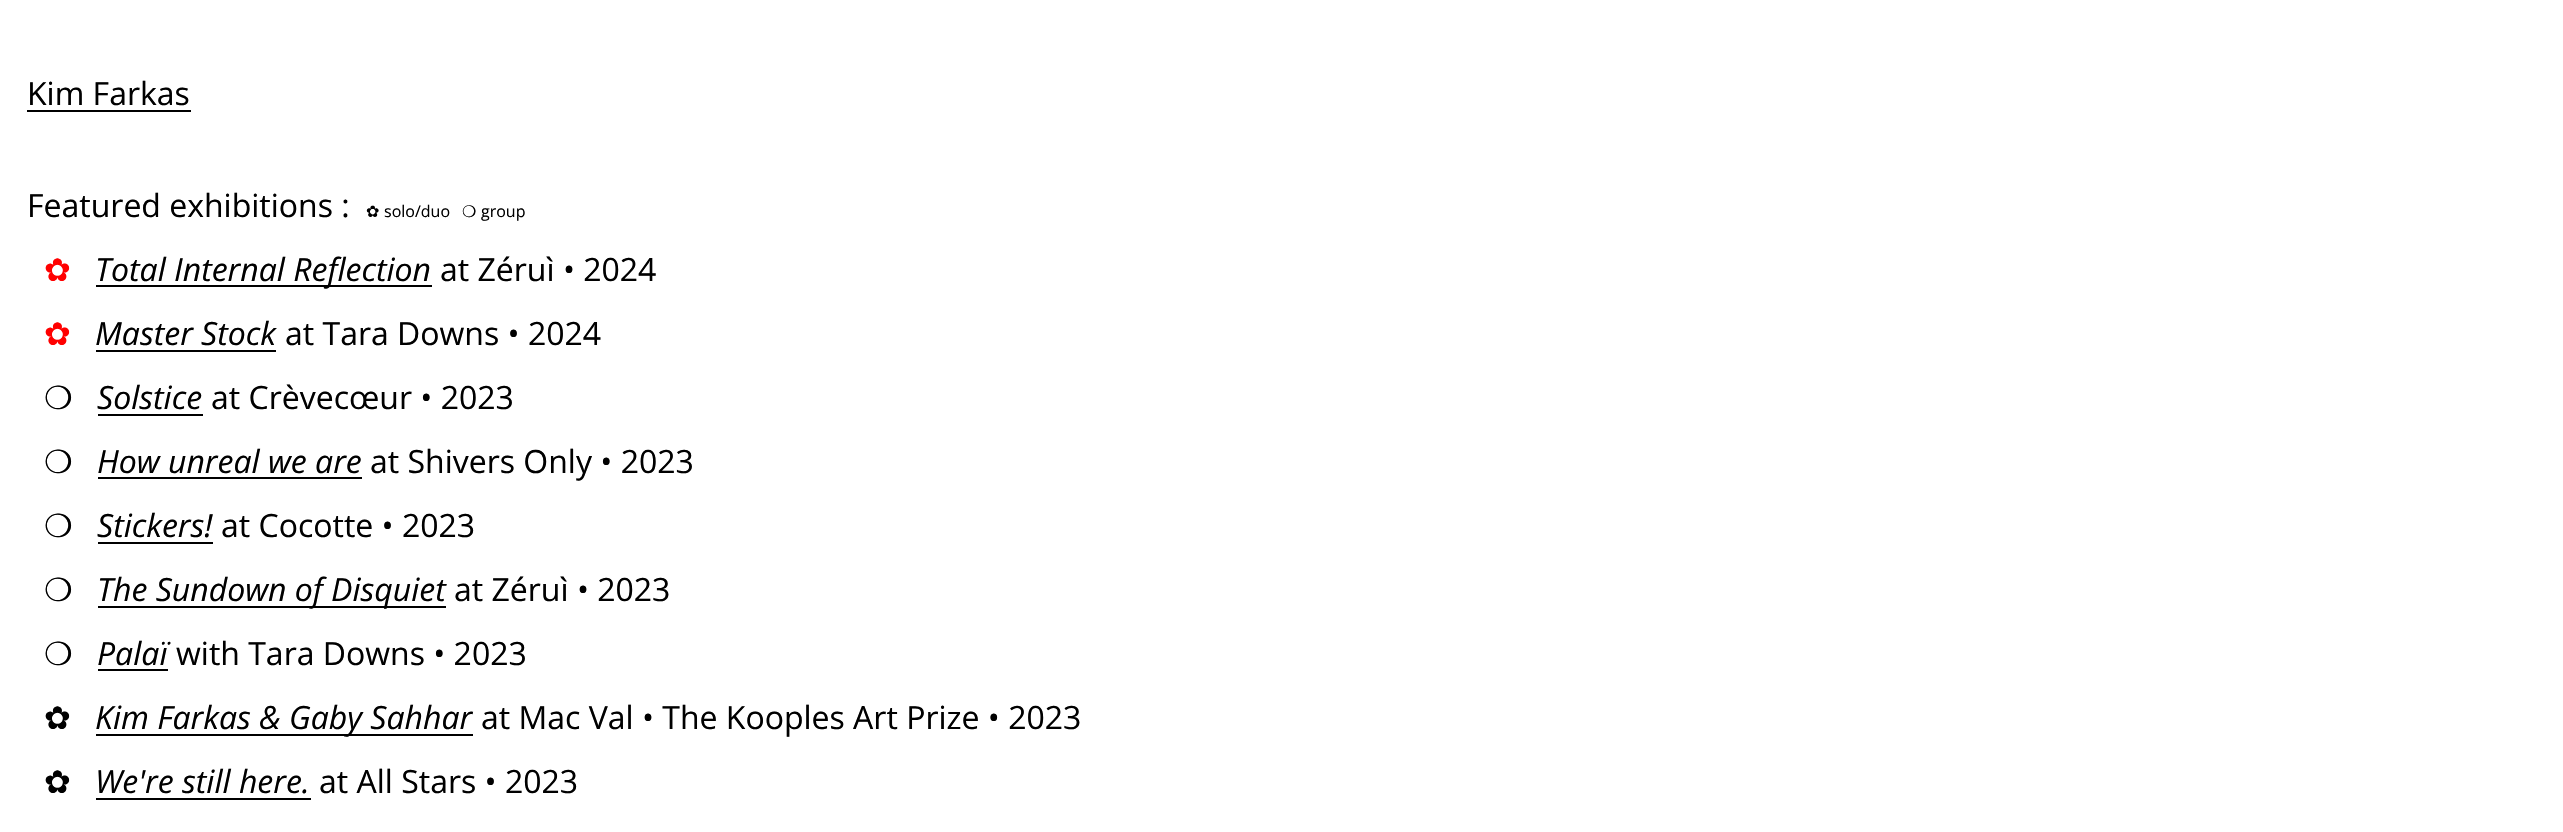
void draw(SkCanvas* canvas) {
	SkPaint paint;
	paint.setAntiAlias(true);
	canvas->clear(0xffffffff);
	SkFont f1(fontMgr->matchFamilyStyle("Open Sans", SkFontStyle::Normal()), 32);
	f1.setSubpixel(true);
	paint.setColor(0xff000000);
	canvas->drawString("Kim Farkas", 27, 105, f1, paint);
	canvas->drawRect(SkRect::MakeXYWH(27, 110, 164, 2), paint);
	canvas->drawString("Featured exhibitions :", 27, 217, f1, paint);
	SkFont f2(fontMgr->matchFamilyStyle("DejaVu Sans", SkFontStyle::Normal()), 16);
	f2.setSubpixel(true);
	canvas->drawString("✿", 366, 217, f2, paint);
	SkFont f3(fontMgr->matchFamilyStyle("Open Sans", SkFontStyle::Normal()), 16);
	f3.setSubpixel(true);
	canvas->drawString("solo/duo", 384, 217, f3, paint);
	canvas->drawString("❍", 462, 217, f2, paint);
	canvas->drawString("group", 481, 217, f3, paint);
	SkFont f4(fontMgr->matchFamilyStyle("DejaVu Sans", SkFontStyle::Normal()), 32);
	f4.setSubpixel(true);
	paint.setColor(0xffff0000);
	canvas->drawString("✿", 44, 281, f4, paint);
	paint.setColor(0xff000000);
	canvas->drawRect(SkRect::MakeXYWH(96, 285, 336, 2), paint);
	SkFont f5(fontMgr->matchFamilyStyle("Open Sans", SkFontStyle::Italic()), 32);
	f5.setSubpixel(true);
	canvas->drawString("Total Internal Reflection", 95, 281, f5, paint);
	canvas->drawString("at Zéruì • 2024", 440, 281, f1, paint);
	paint.setColor(0xffff0000);
	canvas->drawString("✿", 44, 345, f4, paint);
	paint.setColor(0xff000000);
	canvas->drawString("Master Stock", 95, 345, f5, paint);
	canvas->drawRect(SkRect::MakeXYWH(96, 350, 180, 2), paint);
	canvas->drawString("at Tara Downs • 2024", 285, 345, f1, paint);
	canvas->drawString("❍", 44, 409, f4, paint);
	canvas->drawString("Solstice", 97, 409, f5, paint);
	canvas->drawRect(SkRect::MakeXYWH(98, 414, 105, 2), paint);
	canvas->drawString("at Crèvecœur • 2023", 211, 409, f1, paint);
	canvas->drawString("❍", 44, 473, f4, paint);
	canvas->drawString("How unreal we are", 97, 473, f5, paint);
	canvas->drawRect(SkRect::MakeXYWH(98, 477, 264, 2), paint);
	canvas->drawString("at Shivers Only • 2023", 370, 473, f1, paint);
	canvas->drawString("❍", 44, 537, f4, paint);
	canvas->drawString("Stickers!", 97, 537, f5, paint);
	canvas->drawRect(SkRect::MakeXYWH(98, 542, 115, 2), paint);
	canvas->drawString("at Cocotte • 2023", 221, 537, f1, paint);
	canvas->drawString("❍", 44, 601, f4, paint);
	canvas->drawRect(SkRect::MakeXYWH(98, 606, 348, 2), paint);
	canvas->drawString("The Sundown of Disquiet", 97, 601, f5, paint);
	canvas->drawString("at Zéruì • 2023", 454, 601, f1, paint);
	canvas->drawString("❍", 44, 665, f4, paint);
	canvas->drawString("Palaï", 97, 665, f5, paint);
	canvas->drawRect(SkRect::MakeXYWH(98, 669, 70, 2), paint);
	canvas->drawString("with Tara Downs • 2023", 176, 665, f1, paint);
	canvas->drawString("✿", 44, 729, f4, paint);
	canvas->drawRect(SkRect::MakeXYWH(96, 734, 377, 2), paint);
	canvas->drawString("Kim Farkas & Gaby Sahhar", 95, 729, f5, paint);
	canvas->drawString("at Mac Val • The Kooples Art Prize • 2023", 481, 729, f1, paint);
	canvas->drawString("✿", 44, 793, f4, paint);
	canvas->drawString("We're still here.", 95, 793, f5, paint);
	canvas->drawRect(SkRect::MakeXYWH(96, 798, 215, 2), paint);
	canvas->drawString("at All Stars • 2023", 319, 793, f1, paint);
}
